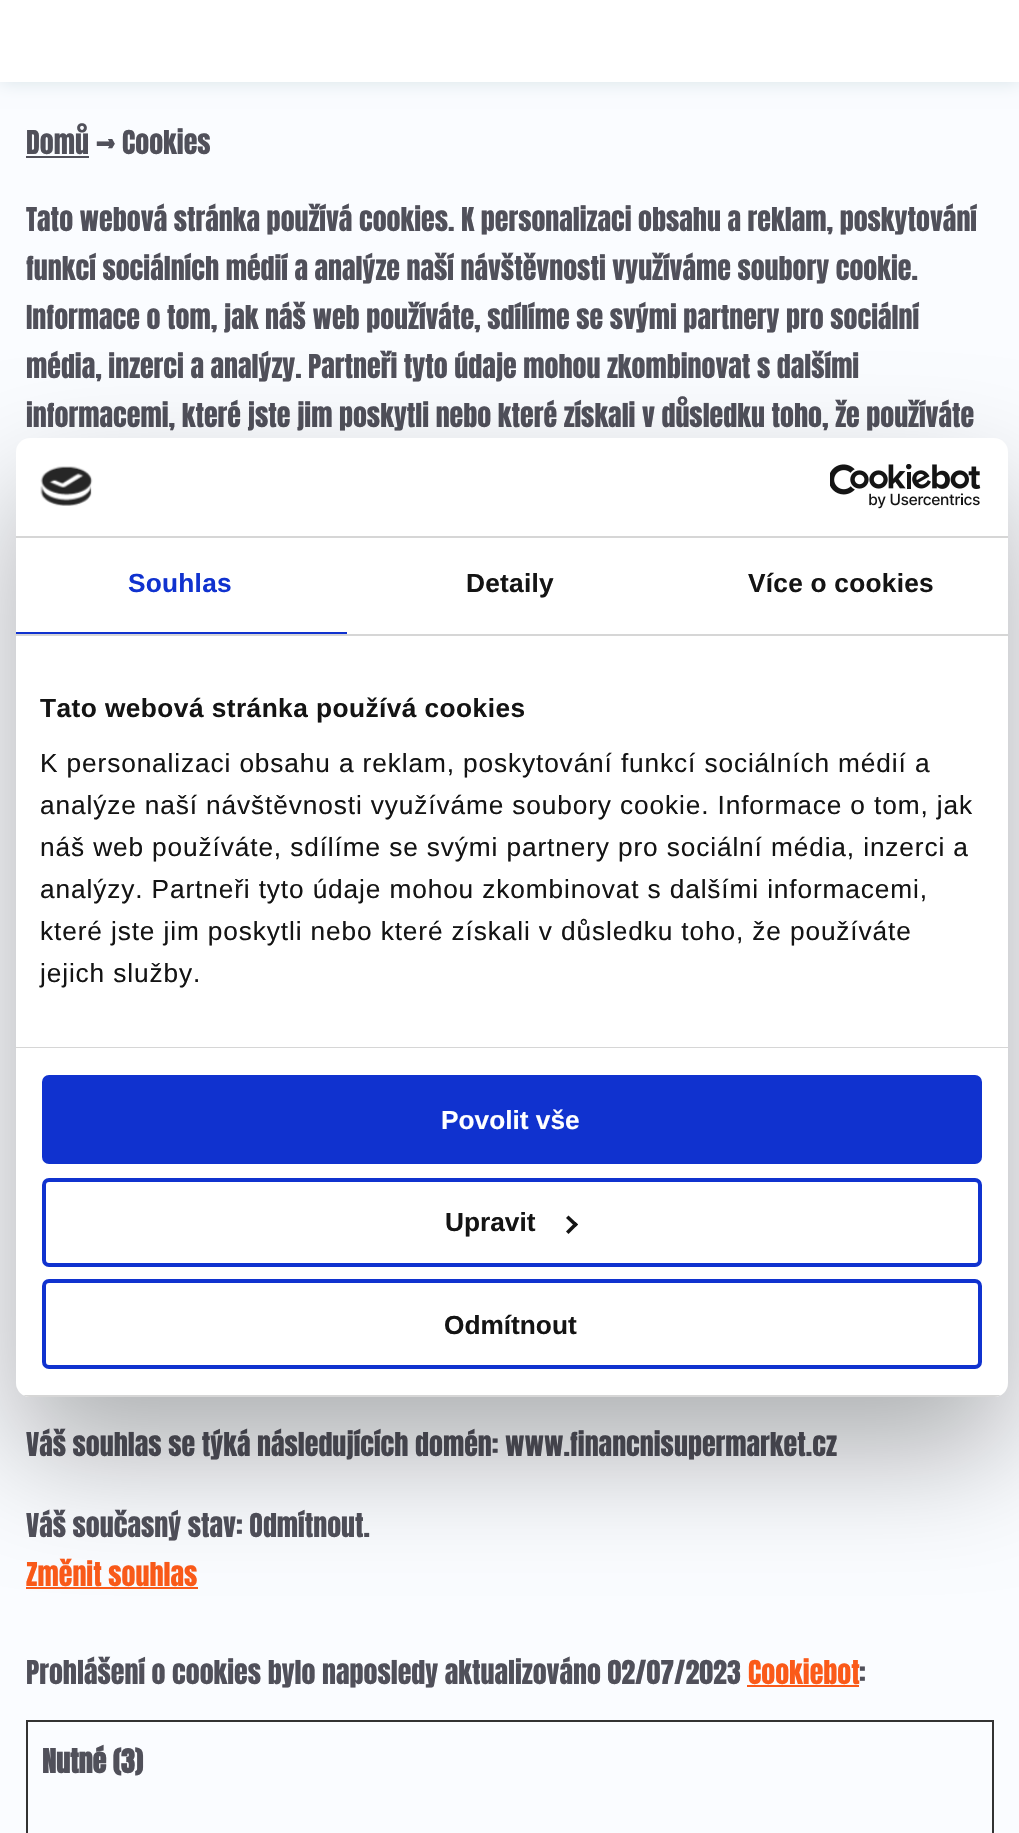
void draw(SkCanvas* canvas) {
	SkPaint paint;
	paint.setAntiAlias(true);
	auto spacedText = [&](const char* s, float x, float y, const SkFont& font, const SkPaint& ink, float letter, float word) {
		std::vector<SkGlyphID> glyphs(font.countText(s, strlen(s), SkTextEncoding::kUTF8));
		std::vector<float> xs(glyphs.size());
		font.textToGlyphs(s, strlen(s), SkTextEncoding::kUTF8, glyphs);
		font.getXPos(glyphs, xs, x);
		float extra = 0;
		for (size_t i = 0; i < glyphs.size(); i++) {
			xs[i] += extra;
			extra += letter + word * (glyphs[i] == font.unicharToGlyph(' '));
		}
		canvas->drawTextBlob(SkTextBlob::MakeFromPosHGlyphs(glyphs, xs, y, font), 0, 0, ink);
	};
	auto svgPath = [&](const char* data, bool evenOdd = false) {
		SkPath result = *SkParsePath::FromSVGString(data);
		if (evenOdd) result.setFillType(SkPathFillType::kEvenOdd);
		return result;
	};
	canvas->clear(0xfffafcff);
	paint.setColor(0xffd8e3e8);
	paint.setMaskFilter(SkMaskFilter::MakeBlur(kNormal_SkBlurStyle, 9));
	canvas->drawRect(SkRect::MakeXYWH(0, 0, 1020, 82), paint);
	paint.setMaskFilter(nullptr);
	paint.setColor(0xffffffff);
	canvas->drawRect(SkRect::MakeXYWH(0, 0, 1019, 82), paint);
	SkFont f1(fontMgr->matchFamilyStyle("Anton", SkFontStyle::Normal()), 28);
	f1.setSubpixel(true);
	paint.setColor(0xff50505a);
	canvas->drawString("Domů", 26, 154, f1, paint);
	canvas->drawRect(SkRect::MakeXYWH(26, 156, 63, 2), paint);
	canvas->drawString("→", 96, 154, f1, paint);
	canvas->drawString("Cookies", 122, 154, f1, paint);
	canvas->drawString("Tato webová stránka používá cookies. K personalizaci obsahu a reklam, poskytování", 26, 231, f1, paint);
	canvas->drawString("funkcí sociálních médií a analýze naší návštěvnosti využíváme soubory cookie.", 26, 280, f1, paint);
	canvas->drawString("Informace o tom, jak náš web používáte, sdílíme se svými partnery pro sociální", 26, 329, f1, paint);
	canvas->drawString("média, inzerci a analýzy. Partneři tyto údaje mohou zkombinovat s dalšími", 26, 378, f1, paint);
	canvas->drawString("informacemi, které jste jim poskytli nebo které získali v důsledku toho, že používáte", 26, 427, f1, paint);
	canvas->drawString("Váš souhlas se týká následujících domén: www.financnisupermarket.cz", 26, 1456, f1, paint);
	canvas->drawString("Váš současný stav: Odmítnout.", 26, 1537, f1, paint);
	paint.setColor(0xfffa5a19);
	canvas->drawString("Změnit souhlas", 26, 1586, f1, paint);
	canvas->drawRect(SkRect::MakeXYWH(26, 1587, 172, 2), paint);
	paint.setColor(0xff50505a);
	canvas->drawString("Prohlášení o cookies bylo naposledy aktualizováno 02/07/2023", 26, 1684, f1, paint);
	paint.setColor(0xfffa5a19);
	canvas->drawString("Cookiebot", 748, 1684, f1, paint);
	canvas->drawRect(SkRect::MakeXYWH(747, 1685, 112, 2), paint);
	paint.setColor(0xff50505a);
	canvas->drawString(":", 859, 1684, f1, paint);
	paint.setStroke(true);
	paint.setStrokeWidth(2);
	paint.setColor(0xff333333);
	canvas->drawRect(SkRect::MakeXYWH(27, 1721, 966, 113), paint);
	SkFont f2(fontMgr->matchFamilyStyle("Anton", SkFontStyle::Bold()), 28);
	f2.setSubpixel(true);
	paint.setStroke(false);
	paint.setColor(0xff50505a);
	canvas->drawString("Nutné (3)", 42, 1773, f2, paint);
	paint.setColor(0x4d000000);
	paint.setMaskFilter(SkMaskFilter::MakeBlur(kNormal_SkBlurStyle, 59.5));
	canvas->drawRoundRect(SkRect::MakeXYWH(16, 494, 992, 959), 14, 14, paint);
	paint.setMaskFilter(nullptr);
	paint.setColor(0xffffffff);
	canvas->drawRoundRect(SkRect::MakeXYWH(16, 438, 992, 959), 14, 14, paint);
	paint.setColor(0xffd6d6d6);
	canvas->drawRect(SkRect::MakeXYWH(16, 536, 992, 2), paint);
	canvas->drawImageRect(SkImages::DeferredFromEncodedData(SkData::MakeFromFileName("img1.png")), SkRect::MakeXYWH(40, 466, 53, 40), SkSamplingOptions());
	canvas->drawImageRect(SkImages::DeferredFromEncodedData(SkData::MakeFromFileName("img2.png")), SkRect::MakeXYWH(830, 464, 151, 45), SkSamplingOptions());
	canvas->drawRect(SkRect::MakeXYWH(16, 634, 992, 2), paint);
	paint.setColor(0xff1032cf);
	canvas->drawRect(SkRect::MakeXYWH(16, 632, 331, 2), paint);
	SkFont f3(fontMgr->matchFamilyStyle("Liberation Sans", SkFontStyle::Bold()), 26.25);
	f3.setSubpixel(true);
	spacedText("Souhlas", 128, 592, f3, paint, 0.25, 0);
	paint.setColor(0xff141414);
	spacedText("Detaily", 466, 592, f3, paint, 0.25, 0);
	spacedText("Více o cookies", 748, 592, f3, paint, 0.25, 0);
	paint.setColor(0xffd6d6d6);
	canvas->drawRect(SkRect::MakeXYWH(16, 1047, 992, 1), paint);
	paint.setColor(0xff141414);
	spacedText("Tato webová stránka používá cookies", 40, 717, f3, paint, 0.45, 0);
	SkFont f4(fontMgr->matchFamilyStyle("Liberation Sans", SkFontStyle::Normal()), 26.25);
	f4.setSubpixel(true);
	spacedText("K personalizaci obsahu a reklam, poskytování funkcí sociálních médií a", 40, 772, f4, paint, 0.88, 0);
	spacedText("analýze naší návštěvnosti využíváme soubory cookie. Informace o tom, jak", 40, 814, f4, paint, 0.88, 0);
	spacedText("náš web používáte, sdílíme se svými partnery pro sociální média, inzerci a", 40, 856, f4, paint, 0.88, 0);
	spacedText("analýzy. Partneři tyto údaje mohou zkombinovat s dalšími informacemi,", 40, 898, f4, paint, 0.88, 0);
	spacedText("které jste jim poskytli nebo které získali v důsledku toho, že používáte", 40, 940, f4, paint, 0.88, 0);
	spacedText("jejich služby.", 40, 982, f4, paint, 0.88, 0);
	canvas->save();
	canvas->clipPath(svgPath("M30 438H994C1001.5 438 1008 444.5 1008 452V1383C1008 1390.5 1001.5 1397 994 1397H30C22.5 1397 16 1390.5 16 1383V452C16 444.5 22.5 438 30 438Z"), true);
	paint.setColor(0xffd6d6d6);
	canvas->drawRect(SkRect::MakeXYWH(16, 1395, 992, 2), paint);
	canvas->restore();
	paint.setColor(0xff1032cf);
	canvas->drawRoundRect(SkRect::MakeXYWH(44, 1077, 936, 85), 5, 5, paint);
	paint.setStroke(true);
	paint.setStrokeWidth(4);
	canvas->drawRoundRect(SkRect::MakeXYWH(44, 1077, 936, 85), 5, 5, paint);
	paint.setStroke(false);
	paint.setColor(0xffffffff);
	canvas->drawString("Povolit vše", 441, 1129, f3, paint);
	paint.setStroke(true);
	paint.setColor(0xff1032cf);
	canvas->drawRoundRect(SkRect::MakeXYWH(44, 1180, 936, 85), 5, 5, paint);
	paint.setStroke(false);
	paint.setColor(0xff141414);
	canvas->drawString("Upravit", 445, 1231, f3, paint);
	canvas->drawPath(svgPath("M568.5 1215.5L578 1224.5L575.5 1227L566 1218Z"), paint);
	canvas->drawPath(svgPath("M575.5 1222L578 1224.5L568.5 1234L566 1231.5Z"), paint);
	paint.setStroke(true);
	paint.setColor(0xff1032cf);
	canvas->drawRoundRect(SkRect::MakeXYWH(44, 1281, 936, 86), 5, 5, paint);
	paint.setStroke(false);
	paint.setColor(0xff141414);
	canvas->drawString("Odmítnout", 444, 1334, f3, paint);
}
